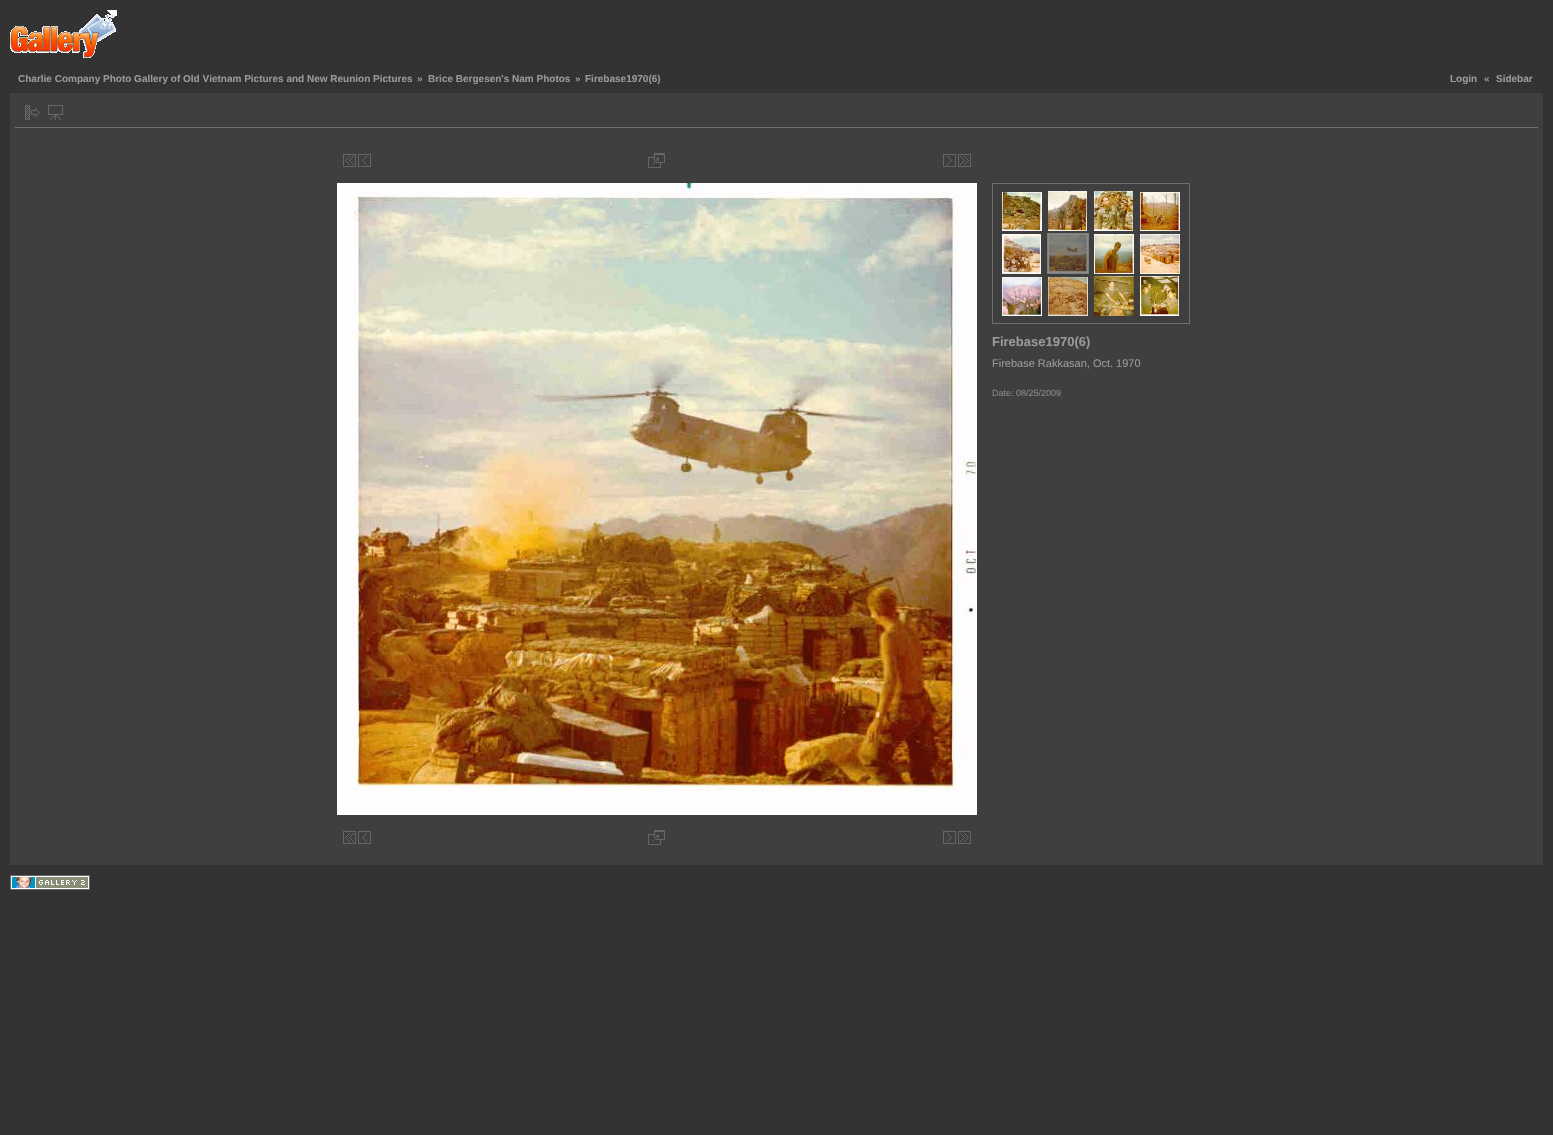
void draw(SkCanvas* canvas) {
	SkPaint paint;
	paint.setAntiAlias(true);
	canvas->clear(0xff333333);
	canvas->drawImageRect(SkImages::DeferredFromEncodedData(SkData::MakeFromFileName("img1.png")), SkRect::MakeXYWH(10, 10, 107, 48), SkSamplingOptions());
	SkFont f1(fontMgr->matchFamilyStyle("Liberation Sans", SkFontStyle::Bold()), 10);
	f1.setSubpixel(true);
	paint.setColor(0xff999999);
	canvas->drawString("Charlie Company Photo Gallery of Old Vietnam Pictures and New Reunion Pictures", 18, 82, f1, paint);
	canvas->drawString("»", 417, 82, f1, paint);
	canvas->drawString("Brice Bergesen's Nam Photos", 428, 82, f1, paint);
	canvas->drawString("»", 575, 82, f1, paint);
	canvas->drawString("Firebase1970(6)", 585, 82, f1, paint);
	canvas->drawString("Login", 1450, 82, f1, paint);
	canvas->drawString("«", 1484, 82, f1, paint);
	canvas->drawString("Sidebar", 1496, 82, f1, paint);
	paint.setColor(0xff3f3f3f);
	canvas->drawRect(SkRect::MakeXYWH(10, 93, 1533, 772), paint);
	paint.setColor(0xff6f6f6f);
	canvas->drawRect(SkRect::MakeXYWH(15, 127, 1523, 1), paint);
	canvas->drawImageRect(SkImages::DeferredFromEncodedData(SkData::MakeFromFileName("img2.png")), SkRect::MakeXYWH(25, 105, 15, 15), SkSamplingOptions());
	canvas->drawImageRect(SkImages::DeferredFromEncodedData(SkData::MakeFromFileName("img3.png")), SkRect::MakeXYWH(48, 105, 15, 15), SkSamplingOptions());
	canvas->drawImageRect(SkImages::DeferredFromEncodedData(SkData::MakeFromFileName("img4.png")), SkRect::MakeXYWH(343, 154, 13, 13), SkSamplingOptions());
	canvas->drawImageRect(SkImages::DeferredFromEncodedData(SkData::MakeFromFileName("img5.png")), SkRect::MakeXYWH(358, 154, 13, 13), SkSamplingOptions());
	canvas->drawImageRect(SkImages::DeferredFromEncodedData(SkData::MakeFromFileName("img6.png")), SkRect::MakeXYWH(648, 153, 17, 15), SkSamplingOptions());
	canvas->drawImageRect(SkImages::DeferredFromEncodedData(SkData::MakeFromFileName("img7.png")), SkRect::MakeXYWH(943, 154, 13, 13), SkSamplingOptions());
	canvas->drawImageRect(SkImages::DeferredFromEncodedData(SkData::MakeFromFileName("img8.png")), SkRect::MakeXYWH(958, 154, 13, 13), SkSamplingOptions());
	canvas->drawImageRect(SkImages::DeferredFromEncodedData(SkData::MakeFromFileName("img9.png")), SkRect::MakeXYWH(337, 183, 640, 632), SkSamplingOptions());
	paint.setStroke(true);
	paint.setStrokeWidth(1);
	canvas->drawRect(SkRect::MakeXYWH(992.5, 183.5, 197, 140), paint);
	canvas->drawImageRect(SkImages::DeferredFromEncodedData(SkData::MakeFromFileName("img10.png")), SkRect::MakeXYWH(1002, 192, 40, 39), SkSamplingOptions());
	canvas->drawImageRect(SkImages::DeferredFromEncodedData(SkData::MakeFromFileName("img11.png")), SkRect::MakeXYWH(1048, 191, 39, 40), SkSamplingOptions());
	canvas->drawImageRect(SkImages::DeferredFromEncodedData(SkData::MakeFromFileName("img12.png")), SkRect::MakeXYWH(1094, 191, 39, 40), SkSamplingOptions());
	canvas->drawImageRect(SkImages::DeferredFromEncodedData(SkData::MakeFromFileName("img13.png")), SkRect::MakeXYWH(1140, 192, 40, 39), SkSamplingOptions());
	canvas->drawImageRect(SkImages::DeferredFromEncodedData(SkData::MakeFromFileName("img14.png")), SkRect::MakeXYWH(1002, 234, 39, 40), SkSamplingOptions());
	paint.setColor(0xff7e7e7e);
	canvas->drawRect(SkRect::MakeXYWH(1047.5, 233.5, 41, 40), paint);
	canvas->drawImageRect(SkImages::DeferredFromEncodedData(SkData::MakeFromFileName("img15.png")), SkRect::MakeXYWH(1048, 234, 40, 39), SkSamplingOptions());
	canvas->drawImageRect(SkImages::DeferredFromEncodedData(SkData::MakeFromFileName("img16.png")), SkRect::MakeXYWH(1094, 234, 40, 40), SkSamplingOptions());
	canvas->drawImageRect(SkImages::DeferredFromEncodedData(SkData::MakeFromFileName("img17.png")), SkRect::MakeXYWH(1140, 234, 40, 40), SkSamplingOptions());
	canvas->drawImageRect(SkImages::DeferredFromEncodedData(SkData::MakeFromFileName("img18.png")), SkRect::MakeXYWH(1002, 277, 40, 39), SkSamplingOptions());
	canvas->drawImageRect(SkImages::DeferredFromEncodedData(SkData::MakeFromFileName("img19.png")), SkRect::MakeXYWH(1048, 277, 40, 39), SkSamplingOptions());
	canvas->drawImageRect(SkImages::DeferredFromEncodedData(SkData::MakeFromFileName("img20.png")), SkRect::MakeXYWH(1094, 276, 40, 40), SkSamplingOptions());
	canvas->drawImageRect(SkImages::DeferredFromEncodedData(SkData::MakeFromFileName("img21.png")), SkRect::MakeXYWH(1140, 276, 39, 40), SkSamplingOptions());
	SkFont f2(fontMgr->matchFamilyStyle("Liberation Sans", SkFontStyle::Bold()), 13);
	f2.setSubpixel(true);
	paint.setStroke(false);
	paint.setColor(0xff999999);
	canvas->drawString("Firebase1970(6)", 992, 346, f2, paint);
	SkFont f3(fontMgr->matchFamilyStyle("Liberation Sans", SkFontStyle::Normal()), 11);
	f3.setSubpixel(true);
	canvas->drawString("Firebase Rakkasan, Oct. 1970", 992, 367, f3, paint);
	SkFont f4(fontMgr->matchFamilyStyle("Liberation Sans", SkFontStyle::Normal()), 9);
	f4.setSubpixel(true);
	paint.setColor(0xff888888);
	canvas->drawString("Date: 08/25/2009", 992, 396, f4, paint);
	canvas->drawImageRect(SkImages::DeferredFromEncodedData(SkData::MakeFromFileName("img4.png")), SkRect::MakeXYWH(343, 831, 13, 13), SkSamplingOptions());
	canvas->drawImageRect(SkImages::DeferredFromEncodedData(SkData::MakeFromFileName("img5.png")), SkRect::MakeXYWH(358, 831, 13, 13), SkSamplingOptions());
	canvas->drawImageRect(SkImages::DeferredFromEncodedData(SkData::MakeFromFileName("img6.png")), SkRect::MakeXYWH(648, 830, 17, 15), SkSamplingOptions());
	canvas->drawImageRect(SkImages::DeferredFromEncodedData(SkData::MakeFromFileName("img7.png")), SkRect::MakeXYWH(943, 831, 13, 13), SkSamplingOptions());
	canvas->drawImageRect(SkImages::DeferredFromEncodedData(SkData::MakeFromFileName("img8.png")), SkRect::MakeXYWH(958, 831, 13, 13), SkSamplingOptions());
	canvas->drawImageRect(SkImages::DeferredFromEncodedData(SkData::MakeFromFileName("img22.png")), SkRect::MakeXYWH(10, 875, 80, 15), SkSamplingOptions());
}
